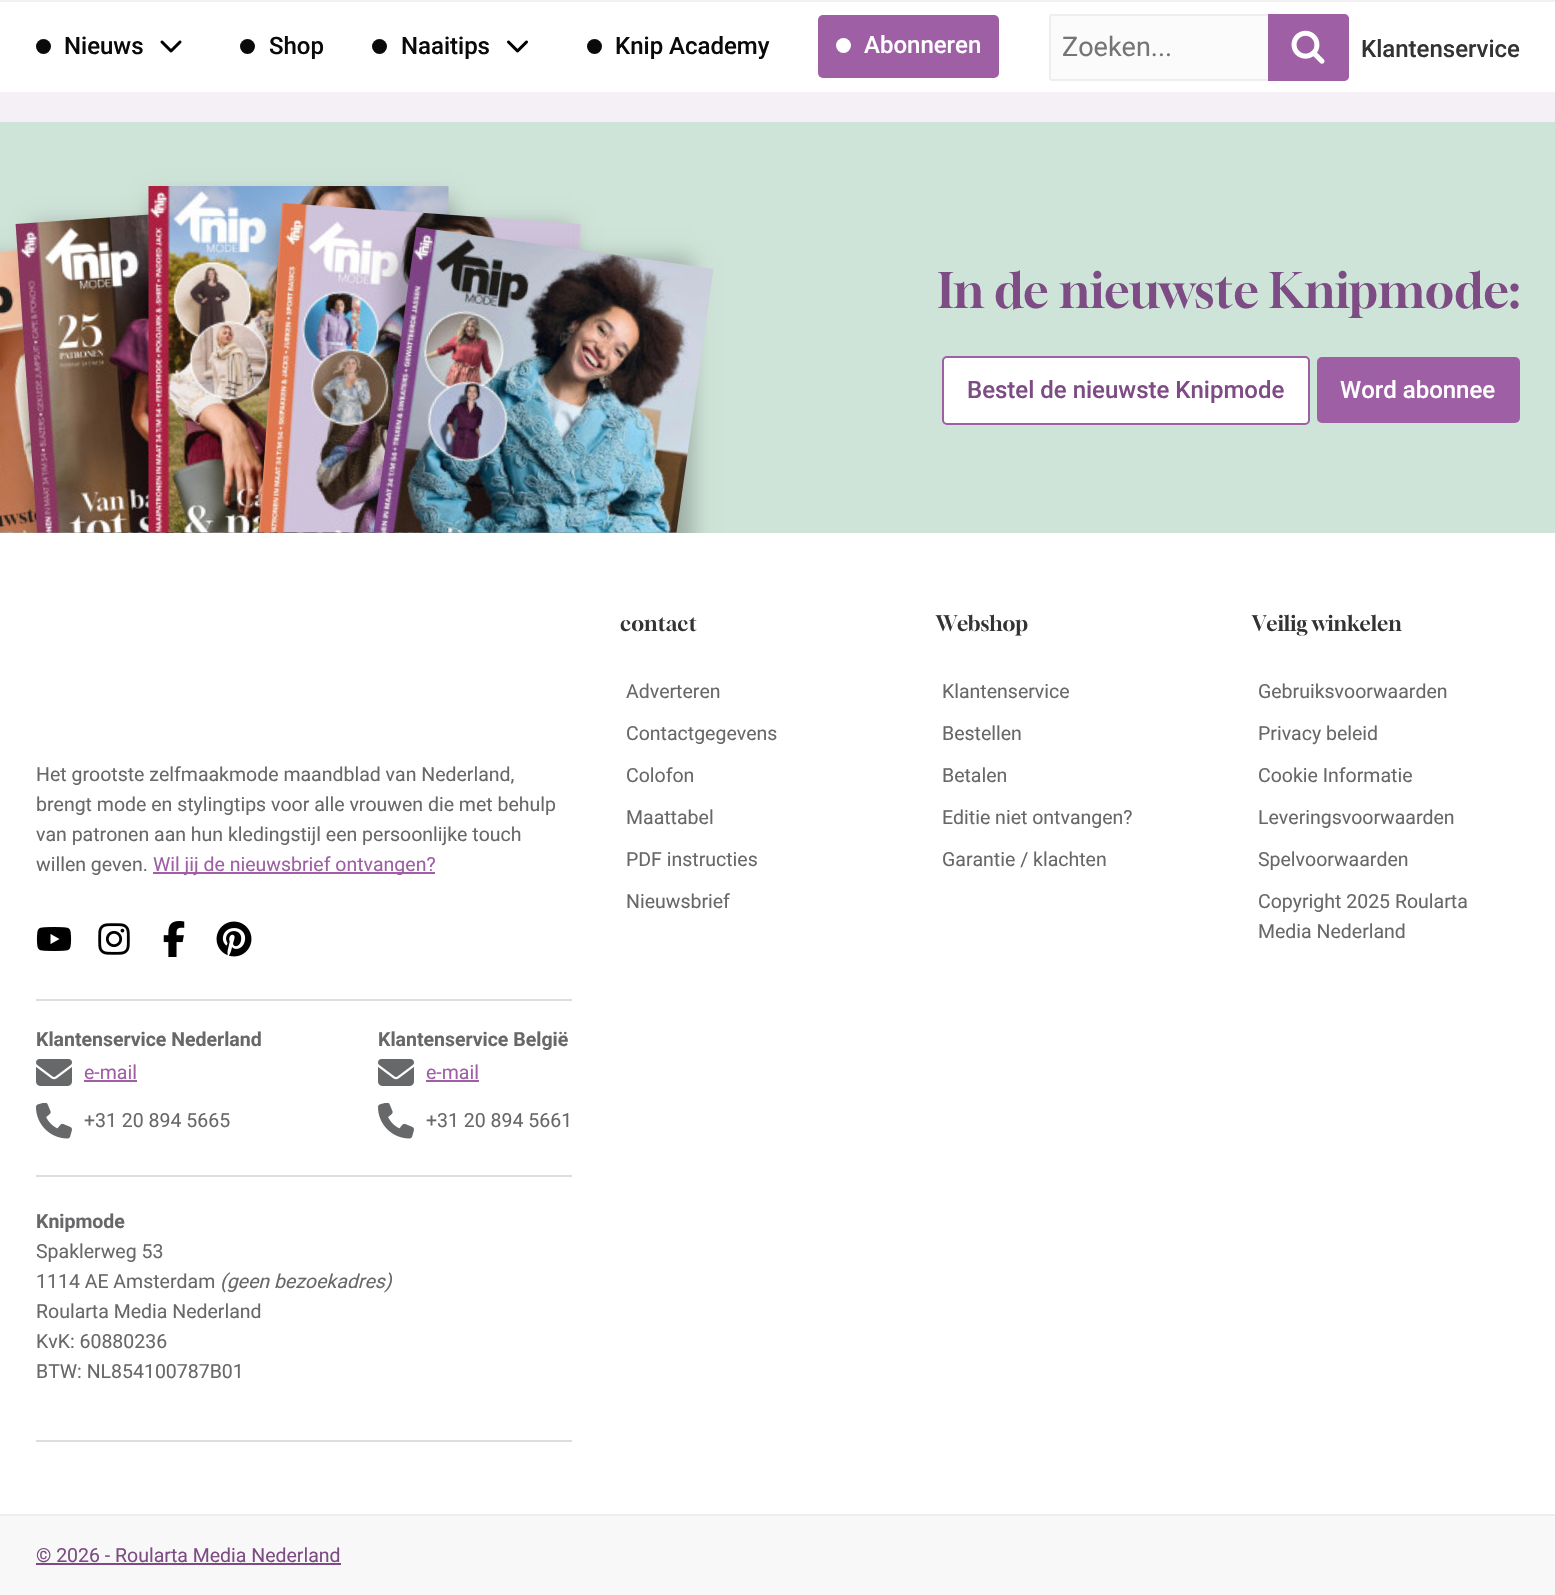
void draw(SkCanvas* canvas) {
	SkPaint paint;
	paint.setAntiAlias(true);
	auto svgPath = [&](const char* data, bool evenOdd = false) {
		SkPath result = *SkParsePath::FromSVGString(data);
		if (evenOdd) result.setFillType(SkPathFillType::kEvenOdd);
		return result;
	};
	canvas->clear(0xfff5eff6);
	paint.setColor(0xffffffff);
	canvas->drawRect(SkRect::MakeXYWH(0, 2, 1555, 90), paint);
	paint.setColor(0xfff2f2f2);
	canvas->drawRect(SkRect::MakeXYWH(0, 0, 1555, 2), paint);
	paint.setColor(0xff0a0a0a);
	canvas->drawCircle(43.5, 46.5, 7.5, paint);
	SkFont f1(fontMgr->matchFamilyStyle("Roboto", SkFontStyle(500, SkFontStyle::kNormal_Width, SkFontStyle::kUpright_Slant)), 24);
	f1.setSubpixel(true);
	canvas->drawString("Nieuws", 64, 54, f1, paint);
	canvas->drawImageRect(SkImages::DeferredFromEncodedData(SkData::MakeFromFileName("img1.png")), SkRect::MakeXYWH(160, 40, 22, 13), SkSamplingOptions());
	canvas->drawCircle(247.5, 46.5, 7.5, paint);
	canvas->drawString("Shop", 269, 54, f1, paint);
	canvas->drawCircle(379.5, 46.5, 7.5, paint);
	canvas->drawString("Naaitips", 401, 54, f1, paint);
	canvas->drawImageRect(SkImages::DeferredFromEncodedData(SkData::MakeFromFileName("img2.png")), SkRect::MakeXYWH(507, 40, 21, 13), SkSamplingOptions());
	canvas->drawCircle(594.5, 46.5, 7.5, paint);
	canvas->drawString("Knip Academy", 615, 54, f1, paint);
	paint.setColor(0xff9e5fa5);
	canvas->drawRoundRect(SkRect::MakeXYWH(818, 15, 181, 63), 5, 5, paint);
	paint.setColor(0xffffffff);
	canvas->drawCircle(843.5, 45.5, 7.5, paint);
	canvas->drawString("Abonneren", 864, 53, f1, paint);
	paint.setColor(0xfffbfbfb);
	canvas->drawRoundRect(SkRect::MakeXYWH(1050, 15, 298, 65), 2, 2, paint);
	paint.setStroke(true);
	paint.setStrokeWidth(2);
	paint.setColor(0xffeeeeee);
	canvas->drawRoundRect(SkRect::MakeXYWH(1050, 15, 298, 65), 2, 2, paint);
	SkFont f2(fontMgr->matchFamilyStyle("Roboto", SkFontStyle::Normal()), 27);
	f2.setSubpixel(true);
	paint.setStroke(false);
	paint.setColor(0xff757575);
	canvas->drawString("Zoeken...", 1062, 56, f2, paint);
	paint.setColor(0xff9e5fa5);
	canvas->drawRoundRect(SkRect::MakeXYWH(1268, 14, 81, 67), 5, 5, paint);
	canvas->drawPath(svgPath("M1268 14H1343C1346.5 14 1349 16.5 1349 20V75C1349 78.5 1346.5 81 1343 81H1268Z"), paint);
	canvas->drawImageRect(SkImages::DeferredFromEncodedData(SkData::MakeFromFileName("img3.png")), SkRect::MakeXYWH(1291, 30, 34, 34), SkSamplingOptions());
	paint.setColor(0xff333333);
	canvas->drawString("Klantenservice", 1361, 57, f1, paint);
	paint.setColor(0xffffffff);
	canvas->drawRect(SkRect::MakeXYWH(0, 533, 1555, 981), paint);
	paint.setColor(0xffcfe4d8);
	canvas->drawRect(SkRect::MakeXYWH(0, 122, 1555, 411), paint);
	canvas->save();
	canvas->clipRect(SkRect::MakeXYWH(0, 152, 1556, 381));
	paint.setColor(0x40000000);
	paint.setMaskFilter(SkMaskFilter::MakeBlur(kNormal_SkBlurStyle, 10.5));
	canvas->drawRect(SkRect::MakeXYWH(-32, 258, 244, 381), paint);
	paint.setMaskFilter(nullptr);
	canvas->restore();
	canvas->drawImageRect(SkImages::DeferredFromEncodedData(SkData::MakeFromFileName("img7.png")), SkRect::MakeXYWH(0, 249, 224, 284), SkSamplingOptions());
	canvas->save();
	canvas->clipRect(SkRect::MakeXYWH(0, 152, 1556, 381));
	paint.setMaskFilter(SkMaskFilter::MakeBlur(kNormal_SkBlurStyle, 10.5));
	canvas->drawRect(SkRect::MakeXYWH(32, 225, 300, 381), paint);
	paint.setMaskFilter(nullptr);
	canvas->restore();
	canvas->drawImageRect(SkImages::DeferredFromEncodedData(SkData::MakeFromFileName("img5.png")), SkRect::MakeXYWH(15, 214, 323, 319), SkSamplingOptions());
	canvas->save();
	canvas->clipRect(SkRect::MakeXYWH(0, 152, 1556, 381));
	paint.setMaskFilter(SkMaskFilter::MakeBlur(kNormal_SkBlurStyle, 10.5));
	canvas->drawRect(SkRect::MakeXYWH(152, 198, 300, 381), paint);
	paint.setMaskFilter(nullptr);
	canvas->restore();
	canvas->drawImageRect(SkImages::DeferredFromEncodedData(SkData::MakeFromFileName("img4.png")), SkRect::MakeXYWH(148, 186, 301, 347), SkSamplingOptions());
	canvas->save();
	canvas->clipRect(SkRect::MakeXYWH(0, 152, 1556, 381));
	paint.setMaskFilter(SkMaskFilter::MakeBlur(kNormal_SkBlurStyle, 10.5));
	canvas->drawRect(SkRect::MakeXYWH(272, 225, 300, 381), paint);
	paint.setMaskFilter(nullptr);
	canvas->restore();
	canvas->drawImageRect(SkImages::DeferredFromEncodedData(SkData::MakeFromFileName("img6.png")), SkRect::MakeXYWH(259, 203, 323, 330), SkSamplingOptions());
	canvas->save();
	canvas->clipRect(SkRect::MakeXYWH(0, 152, 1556, 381));
	paint.setMaskFilter(SkMaskFilter::MakeBlur(kNormal_SkBlurStyle, 10.5));
	canvas->drawRect(SkRect::MakeXYWH(392, 258, 300, 381), paint);
	paint.setMaskFilter(nullptr);
	canvas->restore();
	canvas->drawImageRect(SkImages::DeferredFromEncodedData(SkData::MakeFromFileName("img8.png")), SkRect::MakeXYWH(373, 227, 341, 306), SkSamplingOptions());
	SkFont f3(fontMgr->matchFamilyStyle("Gloock", SkFontStyle::Normal()), 48);
	f3.setSubpixel(true);
	paint.setColor(0xff7e4c84);
	canvas->drawString("In de nieuwste Knipmode:", 938, 308, f3, paint);
	paint.setColor(0xffffffff);
	canvas->drawRoundRect(SkRect::MakeXYWH(943, 357, 366, 67), 4, 4, paint);
	paint.setStroke(true);
	paint.setColor(0xff9e5fa5);
	canvas->drawRoundRect(SkRect::MakeXYWH(943, 357, 366, 67), 4, 4, paint);
	paint.setStroke(false);
	paint.setColor(0xff7e4c84);
	canvas->drawString("Bestel de nieuwste Knipmode", 967, 398, f1, paint);
	paint.setColor(0xff9e5fa5);
	canvas->drawRoundRect(SkRect::MakeXYWH(1317, 357, 203, 66), 5, 5, paint);
	paint.setColor(0xffffffff);
	canvas->drawString("Word abonnee", 1340, 398, f1, paint);
	SkFont f4(fontMgr->matchFamilyStyle("Roboto", SkFontStyle::Normal()), 19.5);
	f4.setSubpixel(true);
	paint.setColor(0xff67686a);
	canvas->drawString("Het grootste zelfmaakmode maandblad van Nederland,", 36, 781, f4, paint);
	canvas->drawString("brengt mode en stylingtips voor alle vrouwen die met behulp", 36, 811, f4, paint);
	canvas->drawString("van patronen aan hun kledingstijl een persoonlijke touch", 36, 841, f4, paint);
	canvas->drawString("willen geven.", 36, 871, f4, paint);
	paint.setColor(0xff9e5fa5);
	canvas->drawRect(SkRect::MakeXYWH(153, 872, 282, 2), paint);
	canvas->drawString("Wil jij de nieuwsbrief ontvangen?", 153, 871, f4, paint);
	canvas->drawImageRect(SkImages::DeferredFromEncodedData(SkData::MakeFromFileName("img9.png")), SkRect::MakeXYWH(36, 927, 36, 24), SkSamplingOptions());
	canvas->drawImageRect(SkImages::DeferredFromEncodedData(SkData::MakeFromFileName("img10.png")), SkRect::MakeXYWH(98, 923, 32, 32), SkSamplingOptions());
	canvas->drawImageRect(SkImages::DeferredFromEncodedData(SkData::MakeFromFileName("img11.png")), SkRect::MakeXYWH(163, 921, 22, 36), SkSamplingOptions());
	canvas->drawImageRect(SkImages::DeferredFromEncodedData(SkData::MakeFromFileName("img12.png")), SkRect::MakeXYWH(216, 921, 36, 36), SkSamplingOptions());
	paint.setColor(0xffdddddd);
	canvas->drawRect(SkRect::MakeXYWH(36, 999, 536, 2), paint);
	canvas->drawRect(SkRect::MakeXYWH(36, 1175, 536, 2), paint);
	SkFont f5(fontMgr->matchFamilyStyle("Roboto", SkFontStyle::Bold()), 19.5);
	f5.setSubpixel(true);
	paint.setColor(0xff67686a);
	canvas->drawString("Klantenservice Nederland", 36, 1046, f5, paint);
	canvas->drawImageRect(SkImages::DeferredFromEncodedData(SkData::MakeFromFileName("img13.png")), SkRect::MakeXYWH(36, 1059, 36, 27), SkSamplingOptions());
	paint.setColor(0xff9e5fa5);
	canvas->drawString("e-mail", 84, 1079, f4, paint);
	canvas->drawRect(SkRect::MakeXYWH(84, 1080, 53, 2), paint);
	canvas->drawImageRect(SkImages::DeferredFromEncodedData(SkData::MakeFromFileName("img14.png")), SkRect::MakeXYWH(36, 1103, 36, 36), SkSamplingOptions());
	paint.setColor(0xff67686a);
	canvas->drawString("+31 20 894 5665", 84, 1127, f4, paint);
	canvas->drawString("Klantenservice België", 378, 1046, f5, paint);
	canvas->drawImageRect(SkImages::DeferredFromEncodedData(SkData::MakeFromFileName("img13.png")), SkRect::MakeXYWH(378, 1059, 36, 27), SkSamplingOptions());
	paint.setColor(0xff9e5fa5);
	canvas->drawString("e-mail", 426, 1079, f4, paint);
	canvas->drawRect(SkRect::MakeXYWH(426, 1080, 53, 2), paint);
	canvas->drawImageRect(SkImages::DeferredFromEncodedData(SkData::MakeFromFileName("img14.png")), SkRect::MakeXYWH(378, 1103, 36, 36), SkSamplingOptions());
	paint.setColor(0xff67686a);
	canvas->drawString("+31 20 894 5661", 426, 1127, f4, paint);
	paint.setColor(0xffdddddd);
	canvas->drawRect(SkRect::MakeXYWH(36, 1440, 536, 2), paint);
	paint.setColor(0xff67686a);
	canvas->drawString("Knipmode", 36, 1228, f5, paint);
	canvas->drawString("Spaklerweg 53", 36, 1258, f4, paint);
	canvas->drawString("1114 AE Amsterdam", 36, 1288, f4, paint);
	SkFont f6(fontMgr->matchFamilyStyle("Roboto", SkFontStyle::Italic()), 19.5);
	f6.setSubpixel(true);
	canvas->drawString("(geen bezoekadres)", 220, 1288, f6, paint);
	canvas->drawString("Roularta Media Nederland", 36, 1318, f4, paint);
	canvas->drawString("KvK: 60880236", 36, 1348, f4, paint);
	canvas->drawString("BTW: NL854100787B01", 36, 1378, f4, paint);
	SkFont f7(fontMgr->matchFamilyStyle("Gloock", SkFontStyle::Normal()), 21);
	f7.setSubpixel(true);
	paint.setColor(0xff333333);
	canvas->drawString("contact", 620, 631, f7, paint);
	paint.setColor(0xff67686a);
	canvas->drawString("Adverteren", 626, 698, f4, paint);
	canvas->drawString("Contactgegevens", 626, 740, f4, paint);
	canvas->drawString("Colofon", 626, 782, f4, paint);
	canvas->drawString("Maattabel", 626, 824, f4, paint);
	canvas->drawString("PDF instructies", 626, 866, f4, paint);
	canvas->drawString("Nieuwsbrief", 626, 908, f4, paint);
	paint.setColor(0xff333333);
	canvas->drawString("Webshop", 936, 631, f7, paint);
	paint.setColor(0xff67686a);
	canvas->drawString("Klantenservice", 942, 698, f4, paint);
	canvas->drawString("Bestellen", 942, 740, f4, paint);
	canvas->drawString("Betalen", 942, 782, f4, paint);
	canvas->drawString("Editie niet ontvangen?", 942, 824, f4, paint);
	canvas->drawString("Garantie / klachten", 942, 866, f4, paint);
	paint.setColor(0xff333333);
	canvas->drawString("Veilig winkelen", 1252, 631, f7, paint);
	paint.setColor(0xff67686a);
	canvas->drawString("Gebruiksvoorwaarden", 1258, 698, f4, paint);
	canvas->drawString("Privacy beleid", 1258, 740, f4, paint);
	canvas->drawString("Cookie Informatie", 1258, 782, f4, paint);
	canvas->drawString("Leveringsvoorwaarden", 1258, 824, f4, paint);
	canvas->drawString("Spelvoorwaarden", 1258, 866, f4, paint);
	canvas->drawString("Copyright 2025 Roularta", 1258, 908, f4, paint);
	canvas->drawString("Media Nederland", 1258, 938, f4, paint);
	paint.setColor(0xfff8f8f8);
	canvas->drawRect(SkRect::MakeXYWH(0, 1516, 1555, 79), paint);
	paint.setColor(0xffeeeeee);
	canvas->drawRect(SkRect::MakeXYWH(0, 1514, 1555, 2), paint);
	paint.setColor(0xff7e4c84);
	canvas->drawString("© 2026 - Roularta Media Nederland", 36, 1562, f4, paint);
	canvas->drawRect(SkRect::MakeXYWH(36, 1563, 305, 2), paint);
}
